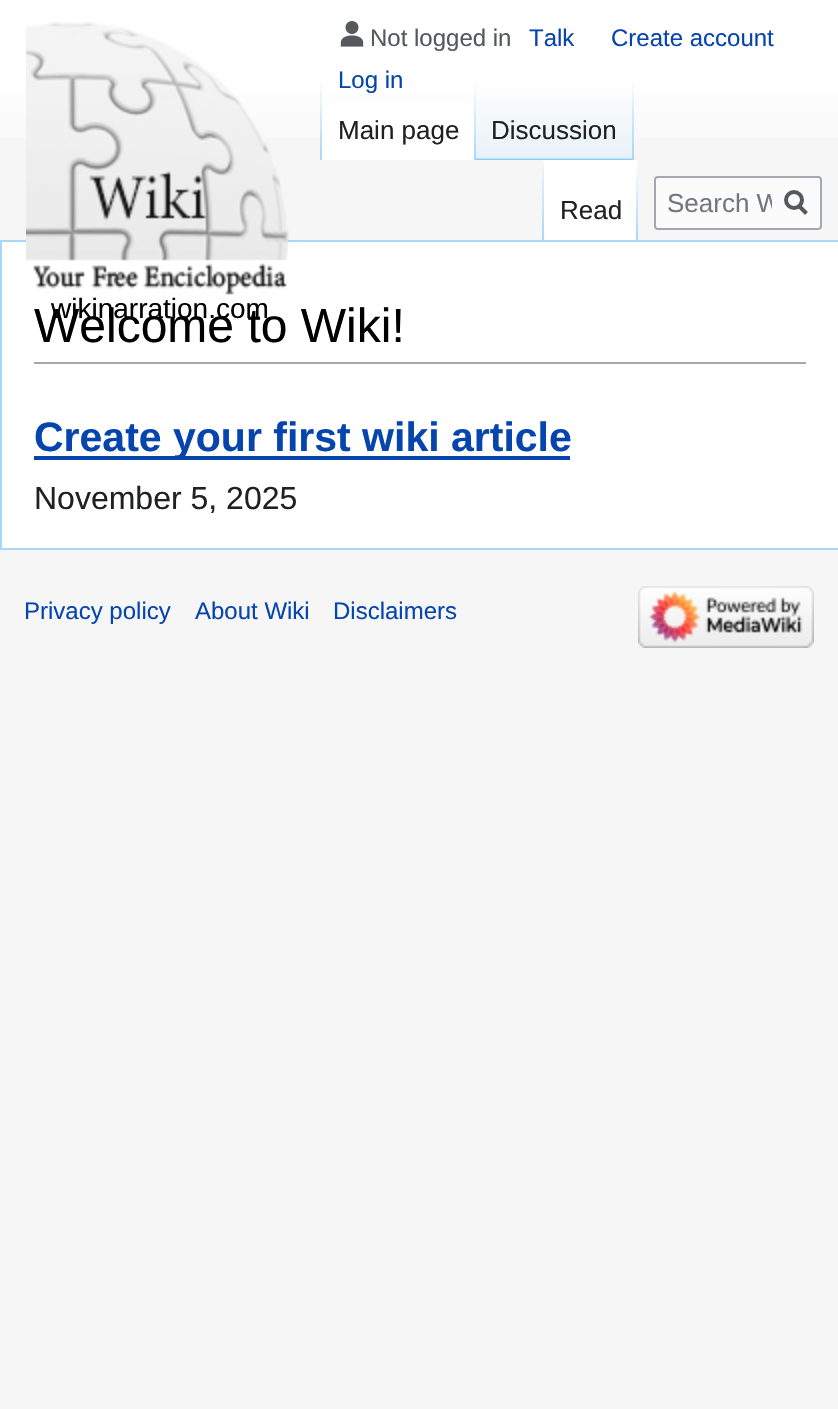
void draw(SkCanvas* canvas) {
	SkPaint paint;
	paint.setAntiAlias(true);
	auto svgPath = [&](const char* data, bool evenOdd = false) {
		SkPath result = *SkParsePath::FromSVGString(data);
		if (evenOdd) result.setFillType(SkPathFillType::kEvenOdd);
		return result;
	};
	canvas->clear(0xfff6f6f6);
	{
		const SkColor colors[] = {0xffffffff, 0xfff6f6f6};
		const float stops[] = {0.5, 1};
		const SkPoint ends[] = {{419, 0}, {419, 160}};
		paint.setShader(SkGradientShader::MakeLinear(ends, colors, stops, 2, SkTileMode::kClamp));
		paint.setAlpha(255);
	}
	canvas->drawRect(SkRect::MakeXYWH(0, 0, 838, 138), paint);
	canvas->drawImageRect(SkImages::DeferredFromEncodedData(SkData::MakeFromFileName("img1.png")), SkRect::MakeXYWH(340, 21, 24, 26), SkSamplingOptions());
	SkFont f1(fontMgr->matchFamilyStyle("Liberation Sans", SkFontStyle::Normal()), 24);
	f1.setSubpixel(true);
	paint.setShader(nullptr);
	paint.setColor(0xff54595d);
	canvas->drawString("Not logged in", 370, 46, f1, paint);
	paint.setColor(0xff0645ad);
	canvas->drawString("Talk", 529, 46, f1, paint);
	canvas->drawString("Create account", 611, 46, f1, paint);
	canvas->drawString("Log in", 338, 88, f1, paint);
	{
		const SkColor colors[] = {0x00a7d7f9, 0xffa7d7f9};
		const float stops[] = {0, 1};
		const SkPoint ends[] = {{321, 80}, {321, 160}};
		paint.setShader(SkGradientShader::MakeLinear(ends, colors, stops, 2, SkTileMode::kClamp));
		paint.setAlpha(255);
	}
	canvas->drawRect(SkRect::MakeXYWH(320, 80, 2, 80), paint);
	paint.setShader(nullptr);
	paint.setColor(0xffffffff);
	canvas->drawRect(SkRect::MakeXYWH(322, 102, 152, 58), paint);
	{
		const SkColor colors[] = {0xffffffff, 0xffa7d7f9};
		const float stops[] = {0, 1};
		const SkPoint ends[] = {{475, 80}, {475, 160}};
		paint.setShader(SkGradientShader::MakeLinear(ends, colors, stops, 2, SkTileMode::kClamp));
		paint.setAlpha(255);
	}
	canvas->drawRect(SkRect::MakeXYWH(474, 80, 2, 80), paint);
	SkFont f2(fontMgr->matchFamilyStyle("Liberation Sans", SkFontStyle::Normal()), 26);
	f2.setSubpixel(true);
	paint.setShader(nullptr);
	paint.setColor(0xff202122);
	canvas->drawString("Main page", 338, 139, f2, paint);
	{
		const SkColor colors[] = {0xff77c1f6, 0xffe8f2f8, 0xffffffff};
		const float stops[] = {0, 0.03, 1};
		const SkPoint ends[] = {{555, 160}, {555, 80}};
		paint.setShader(SkGradientShader::MakeLinear(ends, colors, stops, 3, SkTileMode::kClamp));
		paint.setAlpha(255);
	}
	canvas->drawRect(SkRect::MakeXYWH(476, 92, 158, 68), paint);
	{
		const SkColor colors[] = {0x00a7d7f9, 0xffa7d7f9};
		const float stops[] = {0, 1};
		const SkPoint ends[] = {{633, 80}, {633, 160}};
		paint.setShader(SkGradientShader::MakeLinear(ends, colors, stops, 2, SkTileMode::kClamp));
		paint.setAlpha(255);
	}
	canvas->drawRect(SkRect::MakeXYWH(632, 80, 2, 80), paint);
	paint.setShader(nullptr);
	paint.setColor(0xff202122);
	canvas->drawString("Discussion", 491, 139, f2, paint);
	{
		const SkColor colors[] = {0xfff6f6f6, 0xffa7d7f9};
		const float stops[] = {0, 1};
		const SkPoint ends[] = {{543, 160}, {543, 240}};
		paint.setShader(SkGradientShader::MakeLinear(ends, colors, stops, 2, SkTileMode::kClamp));
		paint.setAlpha(255);
	}
	canvas->drawRect(SkRect::MakeXYWH(542, 160, 2, 80), paint);
	paint.setShader(nullptr);
	paint.setColor(0xffffffff);
	canvas->drawRect(SkRect::MakeXYWH(544, 160, 92, 80), paint);
	{
		const SkColor colors[] = {0xffffffff, 0xffa7d7f9};
		const float stops[] = {0, 1};
		const SkPoint ends[] = {{637, 160}, {637, 240}};
		paint.setShader(SkGradientShader::MakeLinear(ends, colors, stops, 2, SkTileMode::kClamp));
		paint.setAlpha(255);
	}
	canvas->drawRect(SkRect::MakeXYWH(636, 160, 2, 80), paint);
	paint.setShader(nullptr);
	paint.setColor(0xff202122);
	canvas->drawString("Read", 560, 219, f2, paint);
	paint.setColor(0xfffbfbfb);
	canvas->drawRoundRect(SkRect::MakeXYWH(655, 177, 166, 52), 3, 3, paint);
	paint.setStroke(true);
	paint.setStrokeWidth(2);
	paint.setColor(0xffa2a9b1);
	canvas->drawRoundRect(SkRect::MakeXYWH(655, 177, 166, 52), 3, 3, paint);
	canvas->save();
	canvas->clipRect(SkRect::MakeXYWH(666, 188, 106, 30));
	paint.setStroke(false);
	paint.setColor(0xff72777d);
	canvas->drawString("Search W", 667, 212, f2, paint);
	canvas->restore();
	paint.setStroke(true);
	paint.setStrokeWidth(4);
	paint.setColor(0xff54595d);
	canvas->drawPath(svgPath("M806.5 213.5L798.5 205.5"), paint);
	canvas->drawCircle(794, 200, 8, paint);
	paint.setStroke(false);
	paint.setColor(0xffffffff);
	canvas->drawRect(SkRect::MakeXYWH(2, 242, 836, 306), paint);
	paint.setColor(0xffa7d7f9);
	canvas->drawRect(SkRect::MakeXYWH(0, 240, 838, 2), paint);
	canvas->drawImageRect(SkImages::DeferredFromEncodedData(SkData::MakeFromFileName("img2.png")), SkRect::MakeXYWH(26, 22, 263, 273), SkSamplingOptions());
	SkFont f3(fontMgr->matchFamilyStyle("Liberation Sans", SkFontStyle::Normal()), 48);
	f3.setSubpixel(true);
	paint.setColor(0xff000000);
	canvas->drawString("Welcome to Wiki!", 34, 342, f3, paint);
	SkFont f4(fontMgr->matchFamilyStyle("Liberation Sans", SkFontStyle::Normal()), 28);
	f4.setSubpixel(true);
	canvas->drawString("wikinarration.com", 51, 318, f4, paint);
	paint.setColor(0xffa7d7f9);
	canvas->drawRect(SkRect::MakeXYWH(0, 548, 838, 2), paint);
	canvas->drawRect(SkRect::MakeXYWH(0, 240, 2, 310), paint);
	paint.setColor(0xffa2a9b1);
	canvas->drawRect(SkRect::MakeXYWH(34, 362, 772, 2), paint);
	paint.setColor(0xff0645ad);
	canvas->drawRect(SkRect::MakeXYWH(34, 456, 536, 4), paint);
	SkFont f5(fontMgr->matchFamilyStyle("Liberation Sans", SkFontStyle::Bold()), 41);
	f5.setSubpixel(true);
	canvas->drawString("Create your first wiki article", 34, 451, f5, paint);
	SkFont f6(fontMgr->matchFamilyStyle("Liberation Sans", SkFontStyle::Normal()), 32);
	f6.setSubpixel(true);
	paint.setColor(0xff202122);
	canvas->drawString("November 5, 2025", 34, 509, f6, paint);
	paint.setColor(0xff0645ad);
	canvas->drawString("Privacy policy", 24, 619, f1, paint);
	canvas->drawString("About Wiki", 195, 619, f1, paint);
	canvas->drawString("Disclaimers", 333, 619, f1, paint);
	canvas->drawImageRect(SkImages::DeferredFromEncodedData(SkData::MakeFromFileName("img3.png")), SkRect::MakeXYWH(638, 586, 176, 62), SkSamplingOptions());
}
